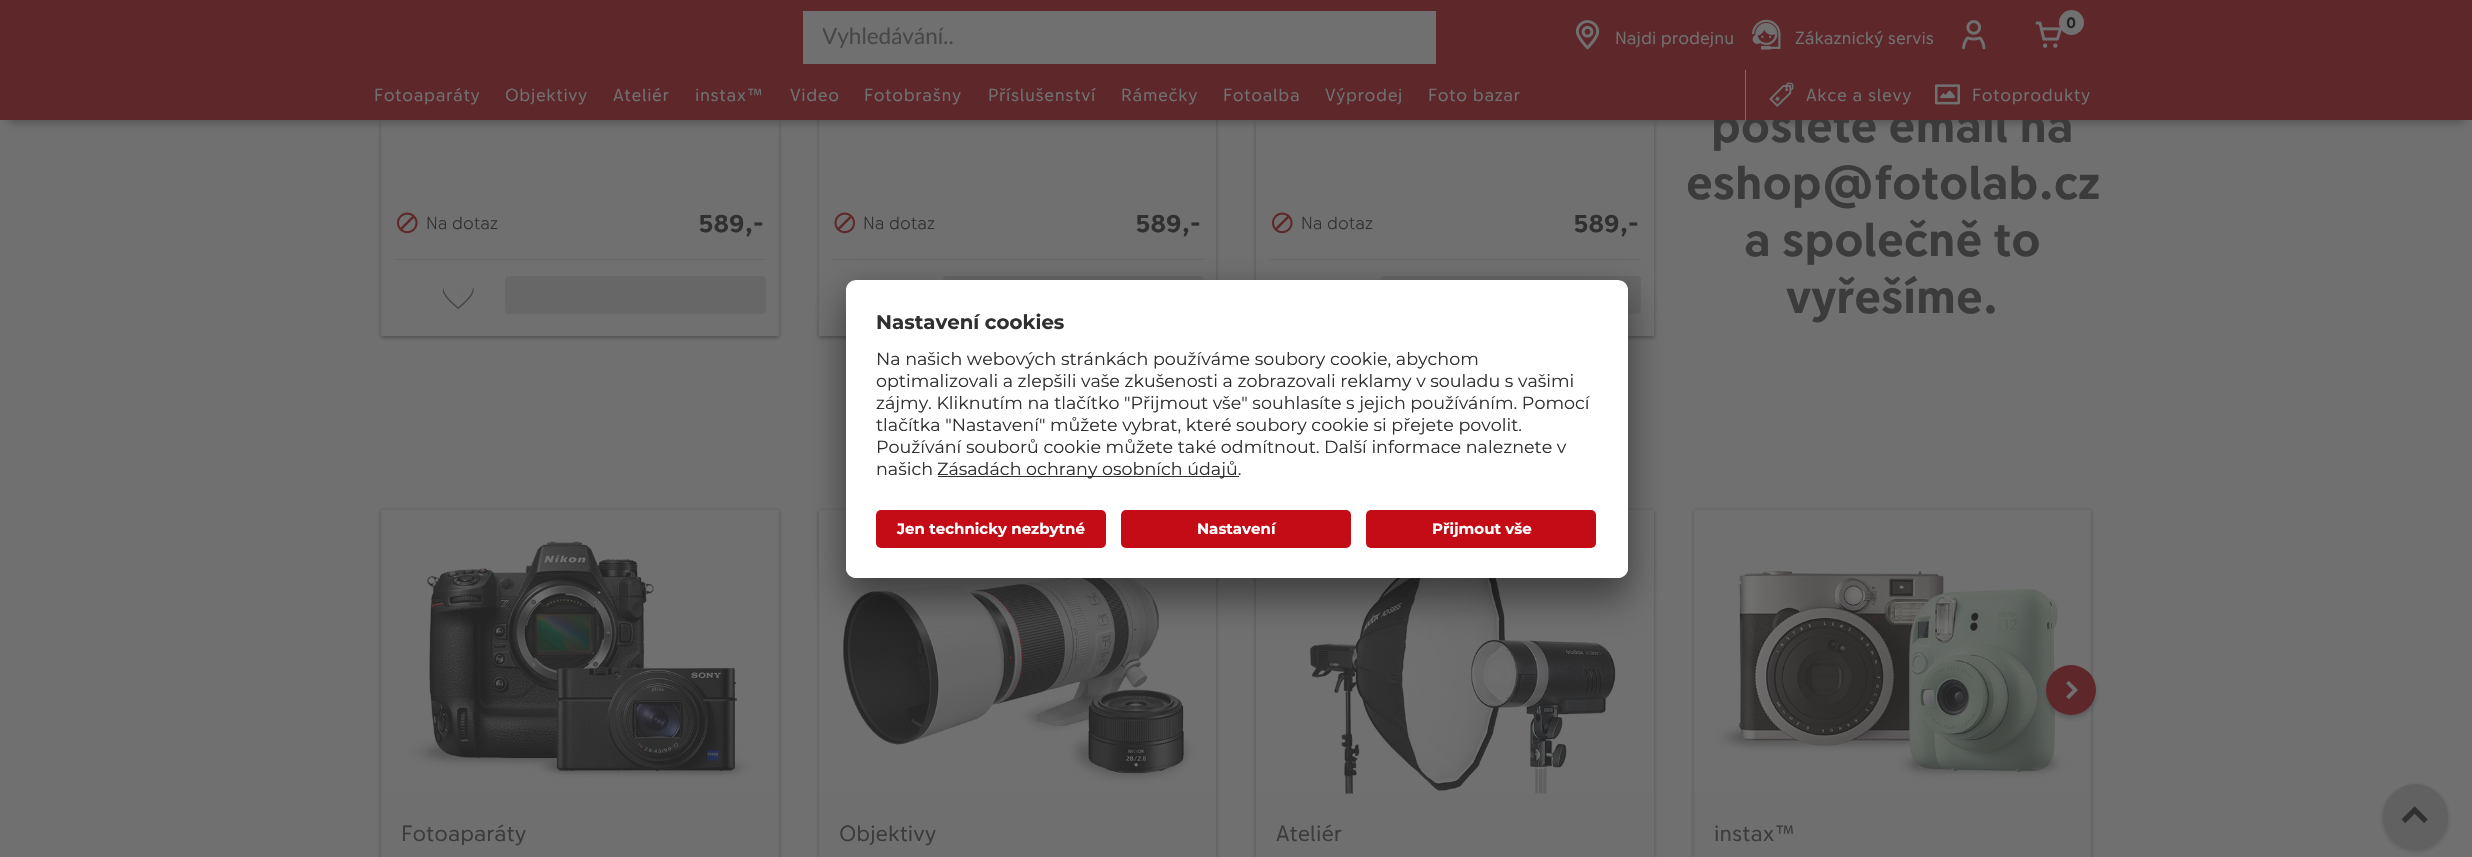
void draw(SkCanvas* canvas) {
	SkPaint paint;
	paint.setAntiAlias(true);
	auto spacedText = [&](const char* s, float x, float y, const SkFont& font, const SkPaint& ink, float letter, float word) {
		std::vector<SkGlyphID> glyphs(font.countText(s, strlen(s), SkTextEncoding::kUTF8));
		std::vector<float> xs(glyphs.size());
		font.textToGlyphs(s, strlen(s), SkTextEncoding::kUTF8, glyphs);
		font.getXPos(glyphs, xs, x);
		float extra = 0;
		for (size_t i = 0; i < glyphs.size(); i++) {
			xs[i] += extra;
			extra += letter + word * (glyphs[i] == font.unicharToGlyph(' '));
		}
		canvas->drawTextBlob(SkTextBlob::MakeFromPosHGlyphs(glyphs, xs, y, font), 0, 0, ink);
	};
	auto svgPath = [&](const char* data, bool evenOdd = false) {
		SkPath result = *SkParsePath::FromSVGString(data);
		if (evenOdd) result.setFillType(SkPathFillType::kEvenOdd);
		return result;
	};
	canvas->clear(0xff707070);
	paint.setColor(0x66242424);
	paint.setMaskFilter(SkMaskFilter::MakeBlur(kNormal_SkBlurStyle, 2));
	canvas->drawRect(SkRect::MakeXYWH(381, -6, 398, 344), paint);
	paint.setMaskFilter(nullptr);
	paint.setColor(0xff707070);
	canvas->drawRect(SkRect::MakeXYWH(381, 120, 398, 216), paint);
	paint.setColor(0x66242424);
	paint.setMaskFilter(SkMaskFilter::MakeBlur(kNormal_SkBlurStyle, 2));
	canvas->drawRect(SkRect::MakeXYWH(1256, -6, 398, 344), paint);
	paint.setMaskFilter(nullptr);
	paint.setColor(0xff707070);
	canvas->drawRect(SkRect::MakeXYWH(1256, 120, 398, 216), paint);
	paint.setColor(0xff545454);
	paint.setMaskFilter(SkMaskFilter::MakeBlur(kNormal_SkBlurStyle, 4));
	canvas->drawRect(SkRect::MakeXYWH(8, 18, 2457, 105), paint);
	paint.setMaskFilter(nullptr);
	canvas->save();
	canvas->clipPath(svgPath("M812 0H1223V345H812ZM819-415H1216V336H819Z", true), true);
	paint.setColor(0x66242424);
	paint.setMaskFilter(SkMaskFilter::MakeBlur(kNormal_SkBlurStyle, 2));
	canvas->drawRect(SkRect::MakeXYWH(819, -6, 397, 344), paint);
	paint.setMaskFilter(nullptr);
	canvas->restore();
	SkFont f1(fontMgr->matchFamilyStyle("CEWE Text", SkFontStyle::Bold()), 47.5);
	f1.setSubpixel(true);
	paint.setColor(0xff3b3b3b);
	canvas->drawString("pošlete email na", 1711, 142, f1, paint);
	paint.setColor(0xff5e272a);
	canvas->drawRect(SkRect::MakeXYWH(0, 0, 2472, 120), paint);
	paint.setColor(0xff707070);
	canvas->drawRect(SkRect::MakeXYWH(803, 11, 633, 53), paint);
	canvas->save();
	canvas->clipRect(SkRect::MakeXYWH(823, 24, 588, 27));
	SkFont f2(fontMgr->matchFamilyStyle("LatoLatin", SkFontStyle::Normal()), 22.5);
	f2.setSubpixel(true);
	paint.setColor(0xff474747);
	canvas->drawString("Vyhledávání..", 822, 44, f2, paint);
	canvas->restore();
	canvas->drawImageRect(SkImages::DeferredFromEncodedData(SkData::MakeFromFileName("img1.png")), SkRect::MakeXYWH(1575, 20, 25, 30), SkSamplingOptions());
	SkFont f3(fontMgr->matchFamilyStyle("CEWE Text", SkFontStyle::Normal()), 17.5);
	f3.setSubpixel(true);
	paint.setColor(0xff707070);
	canvas->drawString("Najdi prodejnu", 1615, 44, f3, paint);
	canvas->drawImageRect(SkImages::DeferredFromEncodedData(SkData::MakeFromFileName("img2.png")), SkRect::MakeXYWH(1752, 19, 29, 31), SkSamplingOptions());
	canvas->drawString("Zákaznický servis", 1795, 44, f3, paint);
	canvas->drawImageRect(SkImages::DeferredFromEncodedData(SkData::MakeFromFileName("img3.png")), SkRect::MakeXYWH(1962, 20, 24, 30), SkSamplingOptions());
	canvas->drawImageRect(SkImages::DeferredFromEncodedData(SkData::MakeFromFileName("img4.png")), SkRect::MakeXYWH(2035, 21, 27, 27), SkSamplingOptions());
	canvas->drawCircle(2071.5, 22.5, 12.5, paint);
	SkFont f4(fontMgr->matchFamilyStyle("CEWE Text", SkFontStyle::Bold()), 16);
	f4.setSubpixel(true);
	paint.setColor(0xff242424);
	canvas->drawString("0", 2066, 28, f4, paint);
	paint.setColor(0xff707070);
	spacedText("Fotoaparáty", 374, 101, f3, paint, 0.6, 0);
	spacedText("Objektivy", 505, 101, f3, paint, 0.6, 0);
	spacedText("Ateliér", 613, 101, f3, paint, 0.6, 0);
	spacedText("instax™", 695, 101, f3, paint, 0.6, 0);
	spacedText("Video", 790, 101, f3, paint, 0.6, 0);
	spacedText("Fotobrašny", 864, 101, f3, paint, 0.6, 0);
	spacedText("Příslušenství", 988, 101, f3, paint, 0.6, 0);
	spacedText("Rámečky", 1121, 101, f3, paint, 0.6, 0);
	spacedText("Fotoalba", 1223, 101, f3, paint, 0.6, 0);
	spacedText("Výprodej", 1325, 101, f3, paint, 0.6, 0);
	spacedText("Foto bazar", 1428, 101, f3, paint, 0.6, 0);
	canvas->drawRect(SkRect::MakeXYWH(1745, 70, 1, 50), paint);
	canvas->drawImageRect(SkImages::DeferredFromEncodedData(SkData::MakeFromFileName("img5.png")), SkRect::MakeXYWH(1769, 82, 25, 25), SkSamplingOptions());
	spacedText("Akce a slevy", 1806, 101, f3, paint, 0.6, 0);
	canvas->drawImageRect(SkImages::DeferredFromEncodedData(SkData::MakeFromFileName("img6.png")), SkRect::MakeXYWH(1935, 84, 25, 21), SkSamplingOptions());
	spacedText("Fotoprodukty", 1972, 101, f3, paint, 0.6, 0);
	canvas->drawImageRect(SkImages::DeferredFromEncodedData(SkData::MakeFromFileName("img7.png")), SkRect::MakeXYWH(396, 212, 22, 22), SkSamplingOptions());
	SkFont f5(fontMgr->matchFamilyStyle("CEWE Text", SkFontStyle(300, SkFontStyle::kNormal_Width, SkFontStyle::kUpright_Slant)), 17.5);
	f5.setSubpixel(true);
	paint.setColor(0xff303030);
	canvas->drawString("Na dotaz", 426, 229, f5, paint);
	SkFont f6(fontMgr->matchFamilyStyle("CEWE Text", SkFontStyle::Bold()), 26);
	f6.setSubpixel(true);
	canvas->drawString("589,-", 698, 232, f6, paint);
	paint.setColor(0xff676767);
	canvas->drawRect(SkRect::MakeXYWH(394, 259, 372, 1), paint);
	canvas->drawImageRect(SkImages::DeferredFromEncodedData(SkData::MakeFromFileName("img8.png")), SkRect::MakeXYWH(443, 288, 31, 22), SkSamplingOptions());
	canvas->drawRoundRect(SkRect::MakeXYWH(505, 276, 261, 38), 4, 4, paint);
	canvas->drawImageRect(SkImages::DeferredFromEncodedData(SkData::MakeFromFileName("img9.png")), SkRect::MakeXYWH(834, 212, 22, 22), SkSamplingOptions());
	paint.setColor(0xff303030);
	canvas->drawString("Na dotaz", 863, 229, f5, paint);
	canvas->drawString("589,-", 1135, 232, f6, paint);
	paint.setColor(0xff676767);
	canvas->drawRect(SkRect::MakeXYWH(831, 259, 373, 1), paint);
	canvas->drawRoundRect(SkRect::MakeXYWH(943, 276, 261, 38), 4, 4, paint);
	canvas->drawImageRect(SkImages::DeferredFromEncodedData(SkData::MakeFromFileName("img7.png")), SkRect::MakeXYWH(1271, 212, 22, 22), SkSamplingOptions());
	paint.setColor(0xff303030);
	canvas->drawString("Na dotaz", 1301, 229, f5, paint);
	canvas->drawString("589,-", 1573, 232, f6, paint);
	paint.setColor(0xff676767);
	canvas->drawRect(SkRect::MakeXYWH(1269, 259, 372, 1), paint);
	canvas->drawRoundRect(SkRect::MakeXYWH(1380, 276, 261, 38), 4, 4, paint);
	paint.setColor(0xff3b3b3b);
	canvas->drawString("eshop@fotolab.cz", 1686, 199, f1, paint);
	canvas->drawString("a společně to", 1744, 256, f1, paint);
	canvas->drawString("vyřešíme.", 1786, 313, f1, paint);
	paint.setColor(0x66242424);
	paint.setMaskFilter(SkMaskFilter::MakeBlur(kNormal_SkBlurStyle, 2));
	canvas->drawRect(SkRect::MakeXYWH(1694, 511, 397, 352), paint);
	paint.setMaskFilter(nullptr);
	canvas->drawImageRect(SkImages::DeferredFromEncodedData(SkData::MakeFromFileName("img14.png")), SkRect::MakeXYWH(1694, 510, 397, 283), SkSamplingOptions());
	paint.setColor(0x4d242424);
	paint.setMaskFilter(SkMaskFilter::MakeBlur(kNormal_SkBlurStyle, 2.5));
	canvas->drawRoundRect(SkRect::MakeXYWH(2046, 668, 50, 50), 25, 25, paint);
	paint.setMaskFilter(nullptr);
	paint.setColor(0xff5e272a);
	canvas->drawCircle(2071, 690, 25, paint);
	canvas->drawImageRect(SkImages::DeferredFromEncodedData(SkData::MakeFromFileName("img10.png")), SkRect::MakeXYWH(2066, 680, 12, 20), SkSamplingOptions());
	paint.setColor(0x66242424);
	paint.setMaskFilter(SkMaskFilter::MakeBlur(kNormal_SkBlurStyle, 2));
	canvas->drawRect(SkRect::MakeXYWH(381, 511, 398, 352), paint);
	paint.setMaskFilter(nullptr);
	paint.setColor(0xff6f6f6f);
	canvas->drawRect(SkRect::MakeXYWH(381, 510, 398, 347), paint);
	canvas->drawImageRect(SkImages::DeferredFromEncodedData(SkData::MakeFromFileName("img11.png")), SkRect::MakeXYWH(382, 510, 396, 283), SkSamplingOptions());
	SkFont f7(fontMgr->matchFamilyStyle("CEWE Text", SkFontStyle::Normal()), 22);
	f7.setSubpixel(true);
	paint.setColor(0xff3b3b3b);
	canvas->drawString("Fotoaparáty", 401, 841, f7, paint);
	paint.setColor(0x66242424);
	paint.setMaskFilter(SkMaskFilter::MakeBlur(kNormal_SkBlurStyle, 2));
	canvas->drawRect(SkRect::MakeXYWH(819, 511, 397, 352), paint);
	paint.setMaskFilter(nullptr);
	paint.setColor(0xff6f6f6f);
	canvas->drawRect(SkRect::MakeXYWH(819, 793, 397, 64), paint);
	canvas->drawImageRect(SkImages::DeferredFromEncodedData(SkData::MakeFromFileName("img12.png")), SkRect::MakeXYWH(819, 510, 397, 283), SkSamplingOptions());
	paint.setColor(0xff3b3b3b);
	canvas->drawString("Objektivy", 839, 841, f7, paint);
	paint.setColor(0x66242424);
	paint.setMaskFilter(SkMaskFilter::MakeBlur(kNormal_SkBlurStyle, 2));
	canvas->drawRect(SkRect::MakeXYWH(1256, 511, 398, 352), paint);
	paint.setMaskFilter(nullptr);
	paint.setColor(0xff6f6f6f);
	canvas->drawRect(SkRect::MakeXYWH(1256, 510, 398, 347), paint);
	canvas->drawImageRect(SkImages::DeferredFromEncodedData(SkData::MakeFromFileName("img13.png")), SkRect::MakeXYWH(1257, 510, 396, 284), SkSamplingOptions());
	paint.setColor(0xff3b3b3b);
	canvas->drawString("Ateliér", 1276, 841, f7, paint);
	paint.setColor(0xff6f6f6f);
	canvas->drawRect(SkRect::MakeXYWH(1694, 793, 397, 64), paint);
	paint.setColor(0xff3b3b3b);
	canvas->drawString("instax™", 1714, 841, f7, paint);
	paint.setColor(0x4d242424);
	paint.setMaskFilter(SkMaskFilter::MakeBlur(kNormal_SkBlurStyle, 2.5));
	canvas->drawRoundRect(SkRect::MakeXYWH(2383, 786, 65, 65), 32.5, 32.5, paint);
	paint.setMaskFilter(nullptr);
	paint.setColor(0xff616161);
	canvas->drawCircle(2415.5, 816.5, 32.5, paint);
	canvas->drawImageRect(SkImages::DeferredFromEncodedData(SkData::MakeFromFileName("img15.png")), SkRect::MakeXYWH(2401, 806, 27, 18), SkSamplingOptions());
	paint.setColor(0x4d000000);
	paint.setMaskFilter(SkMaskFilter::MakeBlur(kNormal_SkBlurStyle, 17.5));
	canvas->drawRoundRect(SkRect::MakeXYWH(846, 305, 782, 298), 10, 10, paint);
	paint.setMaskFilter(nullptr);
	paint.setColor(0x38000000);
	paint.setMaskFilter(SkMaskFilter::MakeBlur(kNormal_SkBlurStyle, 16));
	canvas->drawRoundRect(SkRect::MakeXYWH(846, 286, 782, 298), 10, 10, paint);
	paint.setMaskFilter(nullptr);
	paint.setColor(0xffffffff);
	canvas->drawRoundRect(SkRect::MakeXYWH(846, 280, 782, 298), 10, 10, paint);
	canvas->save();
	canvas->clipPath(svgPath("M856 280H1618C1623.5 280 1628 284.5 1628 290V568C1628 573.5 1623.5 578 1618 578H856C850.5 578 846 573.5 846 568V290C846 284.5 850.5 280 856 280Z"), true);
	canvas->clipPath(svgPath("M856 280H1618C1623.5 280 1628 284.5 1628 290V500H846V290C846 284.5 850.5 280 856 280Z"), true);
	canvas->drawRect(SkRect::MakeXYWH(846, 281, 782, 219), paint);
	canvas->restore();
	SkFont f8(fontMgr->matchFamilyStyle("Montserrat", SkFontStyle::Bold()), 19.75);
	f8.setSubpixel(true);
	paint.setColor(0xff303030);
	canvas->drawString("Nastavení cookies", 876, 329, f8, paint);
	SkFont f9(fontMgr->matchFamilyStyle("Montserrat", SkFontStyle::Normal()), 17.5);
	f9.setSubpixel(true);
	canvas->drawString("Na našich webových stránkách používáme soubory cookie, abychom", 876, 365, f9, paint);
	canvas->drawString("optimalizovali a zlepšili vaše zkušenosti a zobrazovali reklamy v souladu s vašimi", 876, 387, f9, paint);
	canvas->drawString("zájmy. Kliknutím na tlačítko \"Přijmout vše\" souhlasíte s jejich používáním. Pomocí", 876, 409, f9, paint);
	canvas->drawString("tlačítka \"Nastavení\" můžete vybrat, které soubory cookie si přejete povolit.", 876, 431, f9, paint);
	canvas->drawString("Používání souborů cookie můžete také odmítnout. Další informace naleznete v", 876, 453, f9, paint);
	canvas->drawString("našich", 876, 475, f9, paint);
	canvas->drawRect(SkRect::MakeXYWH(938, 476, 301, 1), paint);
	canvas->drawString("Zásadách ochrany osobních údajů.", 937, 475, f9, paint);
	paint.setColor(0xffffffff);
	canvas->drawPath(svgPath("M846 500H1628V568C1628 573.5 1623.5 578 1618 578H856C850.5 578 846 573.5 846 568Z"), paint);
	paint.setColor(0xffc30c15);
	canvas->drawRoundRect(SkRect::MakeXYWH(876, 510, 230, 38), 5, 5, paint);
	SkFont f10(fontMgr->matchFamilyStyle("Montserrat", SkFontStyle::Bold()), 15);
	f10.setSubpixel(true);
	paint.setColor(0xffffffff);
	canvas->drawString("Jen technicky nezbytné", 897, 534, f10, paint);
	paint.setColor(0xffc30c15);
	canvas->drawRoundRect(SkRect::MakeXYWH(1121, 510, 230, 38), 5, 5, paint);
	paint.setColor(0xffffffff);
	canvas->drawString("Nastavení", 1197, 534, f10, paint);
	paint.setColor(0xffc30c15);
	canvas->drawRoundRect(SkRect::MakeXYWH(1366, 510, 230, 38), 5, 5, paint);
	paint.setColor(0xffffffff);
	canvas->drawString("Přijmout vše", 1432, 534, f10, paint);
}
